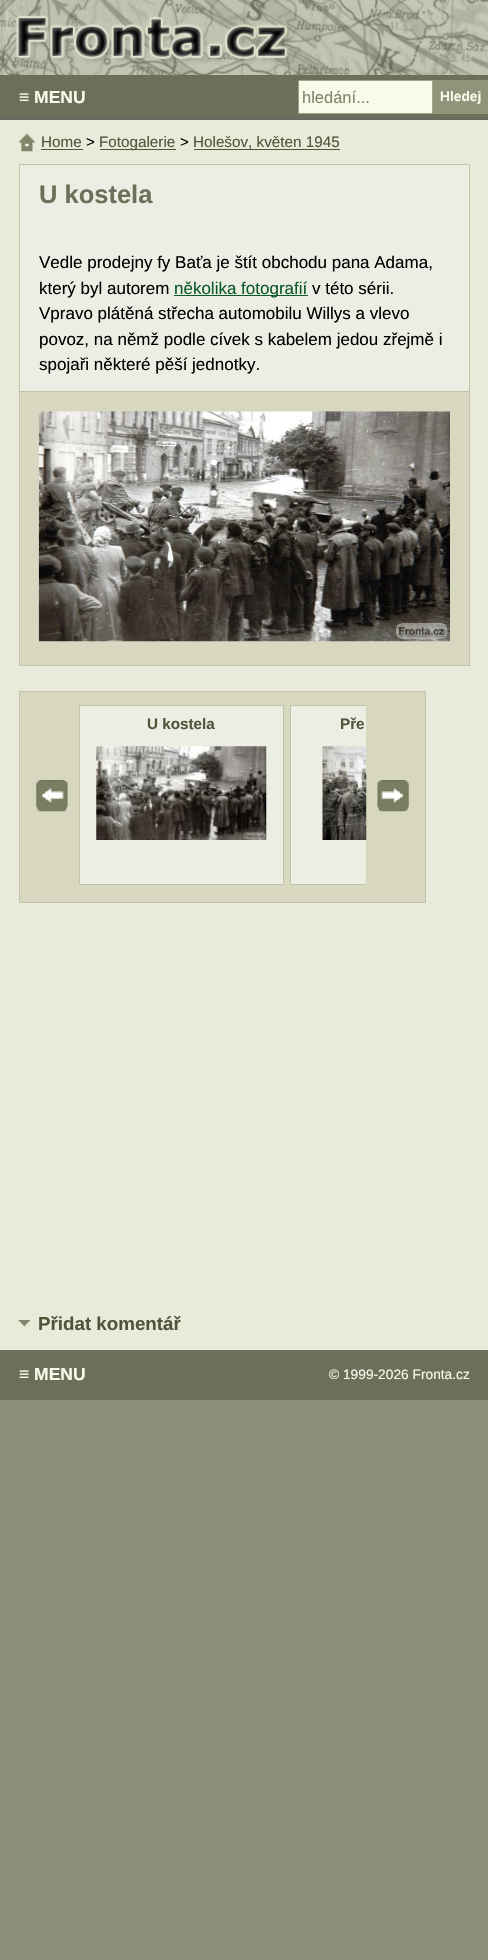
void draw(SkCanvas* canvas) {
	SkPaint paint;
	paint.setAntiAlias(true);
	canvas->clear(0xff8c907a);
	paint.setColor(0xffeaeadb);
	canvas->drawRect(SkRect::MakeXYWH(0, 120, 488, 1230), paint);
	paint.setColor(0xff6c705a);
	canvas->drawRect(SkRect::MakeXYWH(0, 75, 488, 44), paint);
	paint.setColor(0xff666666);
	canvas->drawRect(SkRect::MakeXYWH(0, 119, 488, 1), paint);
	SkFont f1(fontMgr->matchFamilyStyle("Liberation Sans", SkFontStyle::Bold()), 17.5);
	f1.setSubpixel(true);
	paint.setColor(0xfffafaeb);
	canvas->drawString("≡ MENU", 19, 103, f1, paint);
	canvas->drawImageRect(SkImages::DeferredFromEncodedData(SkData::MakeFromFileName("img1.png")), SkRect::MakeXYWH(18, 133, 18, 19), SkSamplingOptions());
	SkFont f2(fontMgr->matchFamilyStyle("Liberation Sans", SkFontStyle::Normal()), 15.25);
	f2.setSubpixel(true);
	paint.setColor(0xff50553a);
	canvas->drawString("Home", 41, 147, f2, paint);
	canvas->drawRect(SkRect::MakeXYWH(41, 149, 42, 1), paint);
	paint.setColor(0xff000000);
	canvas->drawString(">", 86, 147, f2, paint);
	paint.setColor(0xff50553a);
	canvas->drawRect(SkRect::MakeXYWH(100, 149, 76, 1), paint);
	canvas->drawString("Fotogalerie", 99, 147, f2, paint);
	paint.setColor(0xff000000);
	canvas->drawString(">", 180, 147, f2, paint);
	paint.setColor(0xff50553a);
	canvas->drawString("Holešov, květen 1945", 193, 147, f2, paint);
	canvas->drawRect(SkRect::MakeXYWH(194, 149, 146, 1), paint);
	paint.setColor(0xffecede3);
	canvas->drawRect(SkRect::MakeXYWH(20, 165, 449, 226), paint);
	paint.setColor(0xffc0c5aa);
	canvas->drawRect(SkRect::MakeXYWH(19, 164, 451, 1), paint);
	canvas->drawRect(SkRect::MakeXYWH(469, 164, 1, 227), paint);
	canvas->drawRect(SkRect::MakeXYWH(19, 164, 1, 227), paint);
	SkFont f3(fontMgr->matchFamilyStyle("Liberation Sans", SkFontStyle::Bold()), 25.5);
	f3.setSubpixel(true);
	paint.setColor(0xff6c705a);
	canvas->drawString("U kostela", 39, 203, f3, paint);
	SkFont f4(fontMgr->matchFamilyStyle("Liberation Sans", SkFontStyle::Normal()), 17);
	f4.setSubpixel(true);
	paint.setColor(0xff000000);
	canvas->drawString("Vedle prodejny fy Baťa je štít obchodu pana Adama,", 39, 268, f4, paint);
	canvas->drawString("který byl autorem", 39, 294, f4, paint);
	paint.setColor(0xff0c5929);
	canvas->drawRect(SkRect::MakeXYWH(174, 295, 134, 1), paint);
	canvas->drawString("několika fotografií", 174, 294, f4, paint);
	paint.setColor(0xff000000);
	canvas->drawString("v této sérii.", 312, 294, f4, paint);
	canvas->drawString("Vpravo plátěná střecha automobilu Willys a vlevo", 39, 319, f4, paint);
	canvas->drawString("povoz, na němž podle cívek s kabelem jedou zřejmě i", 39, 345, f4, paint);
	canvas->drawString("spojaři některé pěší jednotky.", 39, 370, f4, paint);
	paint.setColor(0xffd8d8c1);
	canvas->drawRect(SkRect::MakeXYWH(19.5, 391.5, 450, 274), paint);
	paint.setStroke(true);
	paint.setStrokeWidth(1);
	paint.setColor(0xffc0c5aa);
	canvas->drawRect(SkRect::MakeXYWH(19.5, 391.5, 450, 274), paint);
	canvas->drawImageRect(SkImages::DeferredFromEncodedData(SkData::MakeFromFileName("img2.png")), SkRect::MakeXYWH(38, 411, 412, 231), SkSamplingOptions());
	paint.setStroke(false);
	paint.setColor(0xffd8d8c1);
	canvas->drawRect(SkRect::MakeXYWH(19.5, 691.5, 406, 211), paint);
	paint.setStroke(true);
	paint.setColor(0xffc0c5aa);
	canvas->drawRect(SkRect::MakeXYWH(19.5, 691.5, 406, 211), paint);
	paint.setStroke(false);
	paint.setColor(0xffecede3);
	canvas->drawRect(SkRect::MakeXYWH(79.5, 705.5, 204, 179), paint);
	paint.setStroke(true);
	paint.setColor(0xffc0c5aa);
	canvas->drawRect(SkRect::MakeXYWH(79.5, 705.5, 204, 179), paint);
	SkFont f5(fontMgr->matchFamilyStyle("Liberation Sans", SkFontStyle::Bold()), 15.25);
	f5.setSubpixel(true);
	paint.setStroke(false);
	paint.setColor(0xff50553a);
	canvas->drawString("U kostela", 147, 729, f5, paint);
	canvas->drawImageRect(SkImages::DeferredFromEncodedData(SkData::MakeFromFileName("img3.png")), SkRect::MakeXYWH(96, 746, 171, 94), SkSamplingOptions());
	paint.setColor(0xffecede3);
	canvas->drawRect(SkRect::MakeXYWH(291, 706, 75, 178), paint);
	canvas->save();
	canvas->clipRect(SkRect::MakeXYWH(79, 705, 287, 180));
	paint.setStroke(true);
	paint.setColor(0xffc0c5aa);
	canvas->drawRect(SkRect::MakeXYWH(290.5, 705.5, 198, 179), paint);
	canvas->restore();
	paint.setStroke(false);
	paint.setColor(0xff50553a);
	canvas->drawString("Pře", 340, 729, f5, paint);
	canvas->drawImageRect(SkImages::DeferredFromEncodedData(SkData::MakeFromFileName("img4.png")), SkRect::MakeXYWH(322, 746, 45, 94), SkSamplingOptions());
	canvas->drawImageRect(SkImages::DeferredFromEncodedData(SkData::MakeFromFileName("img5.png")), SkRect::MakeXYWH(36, 780, 32, 32), SkSamplingOptions());
	canvas->drawImageRect(SkImages::DeferredFromEncodedData(SkData::MakeFromFileName("img6.png")), SkRect::MakeXYWH(377, 780, 32, 32), SkSamplingOptions());
	canvas->drawImageRect(SkImages::DeferredFromEncodedData(SkData::MakeFromFileName("img7.png")), SkRect::MakeXYWH(18, 1320, 13, 7), SkSamplingOptions());
	SkFont f6(fontMgr->matchFamilyStyle("Liberation Sans", SkFontStyle::Bold()), 18.75);
	f6.setSubpixel(true);
	canvas->drawString("Přidat komentář", 38, 1330, f6, paint);
	canvas->drawImageRect(SkImages::DeferredFromEncodedData(SkData::MakeFromFileName("img8.png")), SkRect::MakeXYWH(0, 0, 488, 75), SkSamplingOptions());
	paint.setColor(0xfffafaeb);
	canvas->drawRect(SkRect::MakeXYWH(298.5, 80.5, 134, 33), paint);
	paint.setStroke(true);
	paint.setColor(0xffa0a58a);
	canvas->drawRect(SkRect::MakeXYWH(298.5, 80.5, 134, 33), paint);
	SkFont f7(fontMgr->matchFamilyStyle("Liberation Sans", SkFontStyle::Normal()), 16.5);
	f7.setSubpixel(true);
	paint.setStroke(false);
	paint.setColor(0xff80856a);
	canvas->drawString("hledání...", 302, 103, f7, paint);
	paint.setColor(0xff90957a);
	canvas->drawRect(SkRect::MakeXYWH(433, 80, 55, 34), paint);
	SkFont f8(fontMgr->matchFamilyStyle("Liberation Sans", SkFontStyle::Bold()), 13.75);
	f8.setSubpixel(true);
	paint.setColor(0xfffafaeb);
	canvas->drawString("Hledej", 440, 101, f8, paint);
	paint.setColor(0xff6c705a);
	canvas->drawRect(SkRect::MakeXYWH(0, 1350, 488, 50), paint);
	paint.setColor(0xfffafaeb);
	canvas->drawString("≡ MENU", 19, 1380, f1, paint);
	SkFont f9(fontMgr->matchFamilyStyle("Liberation Sans", SkFontStyle::Normal()), 13.75);
	f9.setSubpixel(true);
	canvas->drawString("© 1999-2026 Fronta.cz", 329, 1379, f9, paint);
}
